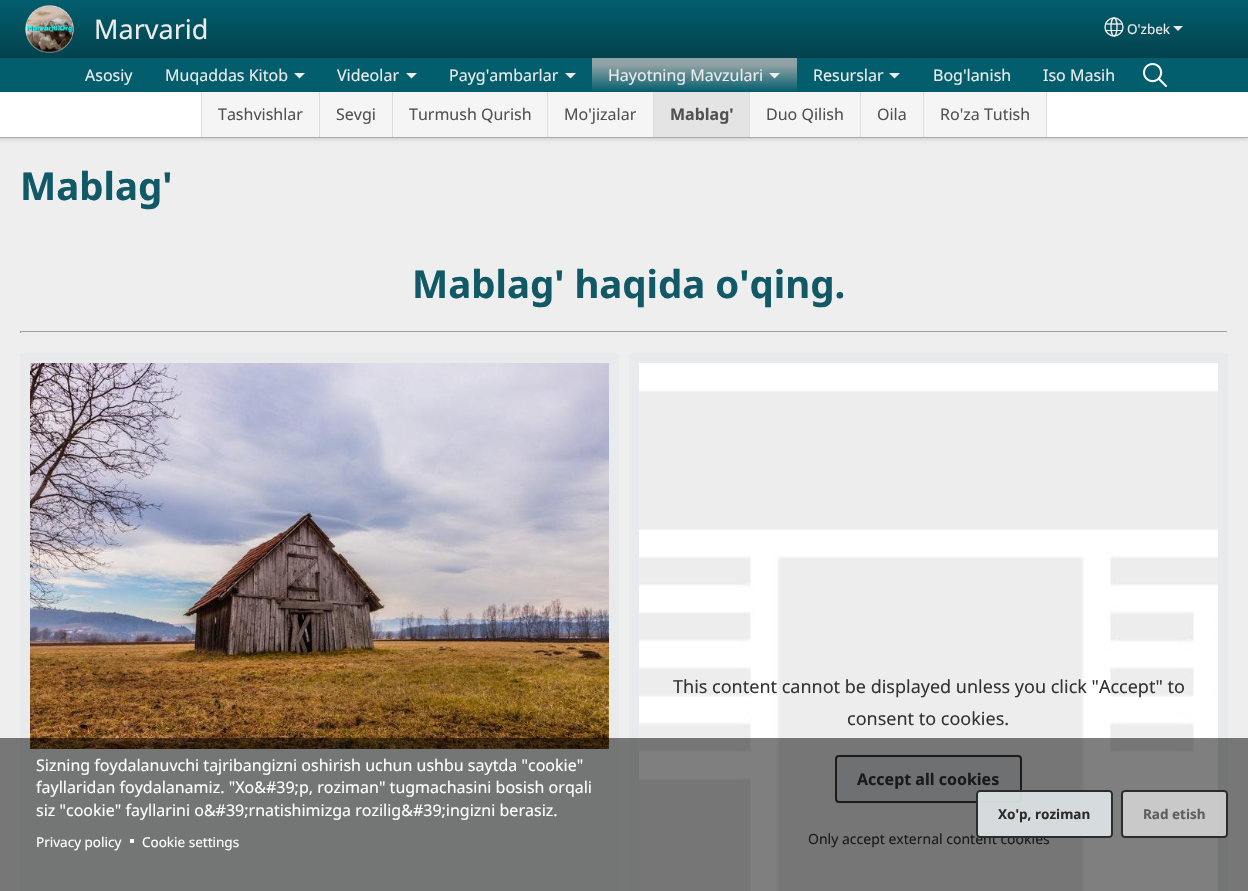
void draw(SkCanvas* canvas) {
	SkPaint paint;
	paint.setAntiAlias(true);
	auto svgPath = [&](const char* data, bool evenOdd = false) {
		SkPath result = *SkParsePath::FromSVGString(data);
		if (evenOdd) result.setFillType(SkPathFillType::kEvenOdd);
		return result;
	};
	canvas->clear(0xffeeeeee);
	{
		const SkColor colors[] = {0xff025e6d, 0xff03424d};
		const float stops[] = {0, 1};
		const SkPoint ends[] = {{624, 0}, {624, 58}};
		paint.setShader(SkGradientShader::MakeLinear(ends, colors, stops, 2, SkTileMode::kClamp));
		paint.setAlpha(255);
	}
	canvas->drawRect(SkRect::MakeXYWH(0, 0, 1248, 58), paint);
	canvas->drawImageRect(SkImages::DeferredFromEncodedData(SkData::MakeFromFileName("img1.png")), SkRect::MakeXYWH(25, 5, 49, 48), SkSamplingOptions());
	SkFont f1(fontMgr->matchFamilyStyle("Noto Sans", SkFontStyle::Normal()), 27);
	f1.setSubpixel(true);
	paint.setShader(nullptr);
	paint.setColor(0xffedebeb);
	canvas->drawString("Marvarid", 94, 39, f1, paint);
	paint.setStroke(true);
	paint.setStrokeWidth(1.4);
	canvas->drawCircle(1114, 27, 9, paint);
	canvas->drawOval(SkRect::MakeXYWH(1111, 18, 6, 18), paint);
	canvas->drawPath(svgPath("M1105 24H1122.5"), paint);
	paint.setStroke(false);
	canvas->drawRect(SkRect::MakeXYWH(1105, 30, 18, 1), paint);
	SkFont f2(fontMgr->matchFamilyStyle("Noto Sans", SkFontStyle::Normal()), 13.5);
	f2.setSubpixel(true);
	canvas->drawString("O'zbek", 1127, 34, f2, paint);
	canvas->drawPath(svgPath("M1173 26H1183L1178 31Z"), paint);
	paint.setColor(0xff025e6d);
	canvas->drawRect(SkRect::MakeXYWH(0, 58, 1248, 34), paint);
	SkFont f3(fontMgr->matchFamilyStyle("Noto Sans", SkFontStyle::Normal()), 16);
	f3.setSubpixel(true);
	paint.setColor(0xffedebeb);
	canvas->drawString("Muqaddas Kitob", 165, 81, f3, paint);
	canvas->drawPath(svgPath("M294 73H305L299.5 78.5Z"), paint);
	canvas->drawImageRect(SkImages::DeferredFromEncodedData(SkData::MakeFromFileName("img2.png")), SkRect::MakeXYWH(1143, 63, 24, 24), SkSamplingOptions());
	{
		const SkColor colors[] = {0xff90a2a5, 0xff025e6d};
		const float stops[] = {0.2, 1};
		const SkPoint ends[] = {{695, 58}, {695, 92}};
		paint.setShader(SkGradientShader::MakeLinear(ends, colors, stops, 2, SkTileMode::kClamp));
		paint.setAlpha(255);
	}
	canvas->drawRect(SkRect::MakeXYWH(592, 58, 205, 34), paint);
	paint.setShader(nullptr);
	paint.setColor(0xffedebeb);
	canvas->drawString("Hayotning Mavzulari", 608, 81, f3, paint);
	canvas->drawPath(svgPath("M769 73H780L774.5 78.5Z"), paint);
	paint.setColor(0x1a000000);
	paint.setMaskFilter(SkMaskFilter::MakeBlur(kNormal_SkBlurStyle, 1.5));
	canvas->drawRect(SkRect::MakeXYWH(-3, 92, 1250, 48), paint);
	paint.setMaskFilter(nullptr);
	paint.setColor(0xffffffff);
	canvas->drawRect(SkRect::MakeXYWH(0, 92, 1248, 45), paint);
	paint.setColor(0xffaaaaaa);
	canvas->drawRect(SkRect::MakeXYWH(0, 137, 1248, 1), paint);
	paint.setColor(0xfff5f5f5);
	canvas->drawRect(SkRect::MakeXYWH(202, 92, 117, 45), paint);
	paint.setColor(0xffdddddd);
	canvas->drawRect(SkRect::MakeXYWH(201, 92, 1, 45), paint);
	paint.setColor(0xff515151);
	canvas->drawString("Tashvishlar", 218, 120, f3, paint);
	paint.setColor(0xfff5f5f5);
	canvas->drawRect(SkRect::MakeXYWH(320, 92, 72, 45), paint);
	paint.setColor(0xffdddddd);
	canvas->drawRect(SkRect::MakeXYWH(319, 92, 1, 45), paint);
	paint.setColor(0xff515151);
	canvas->drawString("Sevgi", 336, 120, f3, paint);
	paint.setColor(0xfff5f5f5);
	canvas->drawRect(SkRect::MakeXYWH(393, 92, 154, 45), paint);
	paint.setColor(0xffdddddd);
	canvas->drawRect(SkRect::MakeXYWH(392, 92, 1, 45), paint);
	paint.setColor(0xff515151);
	canvas->drawString("Turmush Qurish", 409, 120, f3, paint);
	paint.setColor(0xfff5f5f5);
	canvas->drawRect(SkRect::MakeXYWH(548, 92, 105, 45), paint);
	paint.setColor(0xffdddddd);
	canvas->drawRect(SkRect::MakeXYWH(547, 92, 1, 45), paint);
	paint.setColor(0xff515151);
	canvas->drawString("Mo'jizalar", 564, 120, f3, paint);
	paint.setColor(0xffe4e4e4);
	canvas->drawRect(SkRect::MakeXYWH(654, 92, 95, 45), paint);
	paint.setColor(0xffdddddd);
	canvas->drawRect(SkRect::MakeXYWH(653, 92, 1, 45), paint);
	SkFont f4(fontMgr->matchFamilyStyle("Noto Sans", SkFontStyle::Bold()), 16);
	f4.setSubpixel(true);
	paint.setColor(0xff515151);
	canvas->drawString("Mablag'", 670, 120, f4, paint);
	paint.setColor(0xfff5f5f5);
	canvas->drawRect(SkRect::MakeXYWH(750, 92, 110, 45), paint);
	paint.setColor(0xffdddddd);
	canvas->drawRect(SkRect::MakeXYWH(749, 92, 1, 45), paint);
	paint.setColor(0xff515151);
	canvas->drawString("Duo Qilish", 766, 120, f3, paint);
	paint.setColor(0xfff5f5f5);
	canvas->drawRect(SkRect::MakeXYWH(861, 92, 62, 45), paint);
	paint.setColor(0xffdddddd);
	canvas->drawRect(SkRect::MakeXYWH(860, 92, 1, 45), paint);
	paint.setColor(0xff515151);
	canvas->drawString("Oila", 877, 120, f3, paint);
	paint.setColor(0xfff5f5f5);
	canvas->drawRect(SkRect::MakeXYWH(924, 92, 122, 45), paint);
	paint.setColor(0xffdddddd);
	canvas->drawRect(SkRect::MakeXYWH(1046, 92, 1, 45), paint);
	canvas->drawRect(SkRect::MakeXYWH(923, 92, 1, 45), paint);
	paint.setColor(0xff515151);
	canvas->drawString("Ro'za Tutish", 940, 120, f3, paint);
	paint.setColor(0xffedebeb);
	canvas->drawString("Asosiy", 85, 81, f3, paint);
	canvas->drawString("Videolar", 337, 81, f3, paint);
	canvas->drawPath(svgPath("M406 73H417L411.5 78.5Z"), paint);
	canvas->drawString("Payg'ambarlar", 449, 81, f3, paint);
	canvas->drawPath(svgPath("M565 73H576L570.5 78.5Z"), paint);
	canvas->drawString("Resurslar", 813, 81, f3, paint);
	canvas->drawPath(svgPath("M889 73H900L894.5 78.5Z"), paint);
	canvas->drawString("Bog'lanish", 933, 81, f3, paint);
	canvas->drawString("Iso Masih", 1043, 81, f3, paint);
	SkFont f5(fontMgr->matchFamilyStyle("Noto Sans", SkFontStyle::Bold()), 38.4);
	f5.setSubpixel(true);
	paint.setColor(0xff125968);
	canvas->drawString("Mablag'", 20, 200, f5, paint);
	canvas->drawString("Mablag' haqida o'qing.", 412, 298, f5, paint);
	paint.setColor(0xff9f9f9f);
	canvas->drawRect(SkRect::MakeXYWH(20, 331, 1208, 1), paint);
	paint.setColor(0xffeeeeee);
	canvas->drawRect(SkRect::MakeXYWH(1227, 331, 1, 2), paint);
	paint.setColor(0xff9f9f9f);
	canvas->drawRect(SkRect::MakeXYWH(20, 331, 1, 2), paint);
	paint.setColor(0xffe9eaeb);
	canvas->drawRect(SkRect::MakeXYWH(20, 353, 599, 538), paint);
	canvas->drawImageRect(SkImages::DeferredFromEncodedData(SkData::MakeFromFileName("img3.png")), SkRect::MakeXYWH(30, 363, 579, 386), SkSamplingOptions());
	canvas->drawRect(SkRect::MakeXYWH(629, 353, 599, 538), paint);
	canvas->drawImageRect(SkImages::DeferredFromEncodedData(SkData::MakeFromFileName("img4.png")), SkRect::MakeXYWH(639, 363, 579, 528), SkSamplingOptions());
	SkFont f6(fontMgr->matchFamilyStyle("Noto Sans", SkFontStyle::Normal()), 18);
	f6.setSubpixel(true);
	paint.setColor(0xff333333);
	canvas->drawString("This content cannot be displayed unless you click \"Accept\" to", 673, 693, f6, paint);
	canvas->drawString("consent to cookies.", 847, 725, f6, paint);
	paint.setColor(0xffdce0e3);
	canvas->drawRoundRect(SkRect::MakeXYWH(836, 756, 185, 46), 3, 3, paint);
	paint.setStroke(true);
	paint.setStrokeWidth(2);
	paint.setColor(0xff363636);
	canvas->drawRoundRect(SkRect::MakeXYWH(836, 756, 185, 46), 3, 3, paint);
	paint.setStroke(false);
	paint.setColor(0xff333333);
	canvas->drawString("Accept all cookies", 857, 785, f4, paint);
	SkFont f7(fontMgr->matchFamilyStyle("Noto Sans", SkFontStyle::Normal()), 14);
	f7.setSubpixel(true);
	canvas->drawString("Only accept external content cookies", 808, 844, f7, paint);
	paint.setColor(0x80000000);
	canvas->drawRect(SkRect::MakeXYWH(0, 738, 1248, 153), paint);
	paint.setColor(0xffffffff);
	canvas->drawString("Sizning foydalanuvchi tajribangizni oshirish uchun ushbu saytda \"cookie\"", 36, 771, f3, paint);
	canvas->drawString("fayllaridan foydalanamiz. \"Xo&#39;p, roziman\" tugmachasini bosish orqali", 36, 793, f3, paint);
	canvas->drawString("siz \"cookie\" fayllarini o&#39;rnatishimizga rozilig&#39;ingizni berasiz.", 36, 816, f3, paint);
	canvas->drawString("Privacy policy", 36, 847, f2, paint);
	canvas->drawRect(SkRect::MakeXYWH(130, 839, 4, 4), paint);
	canvas->drawString("Cookie settings", 142, 847, f2, paint);
	paint.setColor(0xf2dadfe2);
	canvas->drawRoundRect(SkRect::MakeXYWH(976, 790, 137, 48), 4, 4, paint);
	paint.setStroke(true);
	paint.setColor(0xf2222222);
	canvas->drawRoundRect(SkRect::MakeXYWH(977, 791, 135, 46), 3, 3, paint);
	SkFont f8(fontMgr->matchFamilyStyle("Noto Sans", SkFontStyle::Bold()), 13.5);
	f8.setSubpixel(true);
	paint.setStroke(false);
	paint.setColor(0xff2b2b2b);
	canvas->drawString("Xo'p, roziman", 998, 819, f8, paint);
	paint.setColor(0xf2cccccc);
	canvas->drawRoundRect(SkRect::MakeXYWH(1121, 790, 107, 48), 4, 4, paint);
	paint.setStroke(true);
	paint.setColor(0xf2222222);
	canvas->drawRoundRect(SkRect::MakeXYWH(1122, 791, 105, 46), 3, 3, paint);
	paint.setStroke(false);
	paint.setColor(0xff5e5e5e);
	canvas->drawString("Rad etish", 1143, 819, f8, paint);
}
